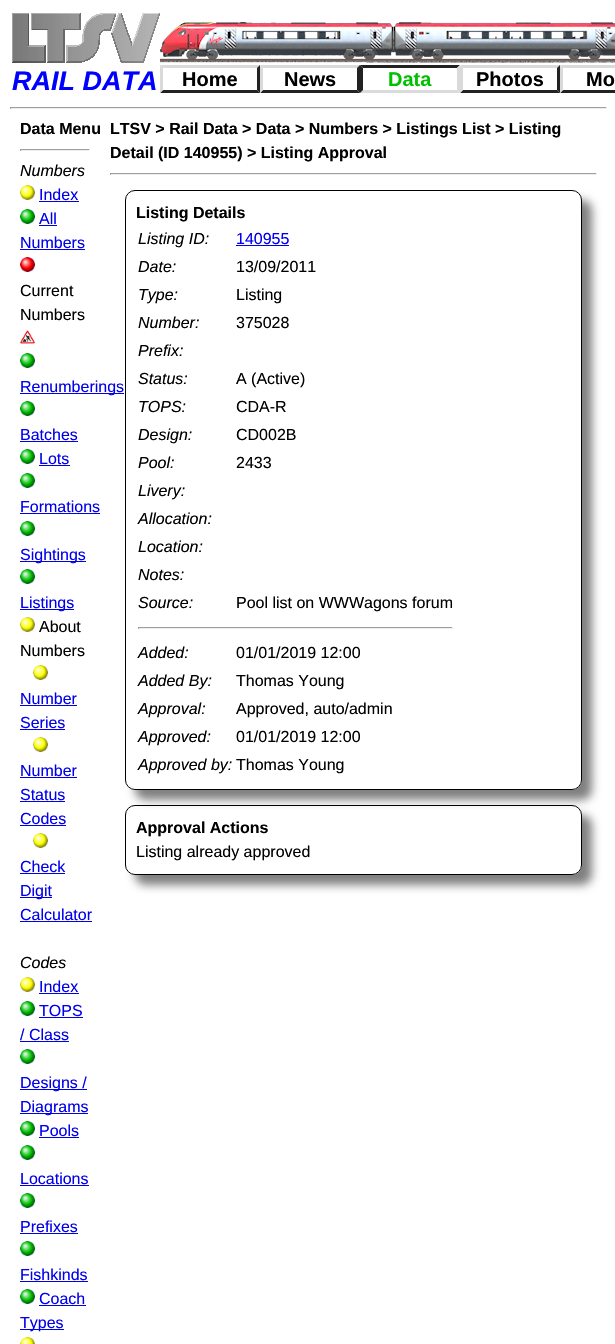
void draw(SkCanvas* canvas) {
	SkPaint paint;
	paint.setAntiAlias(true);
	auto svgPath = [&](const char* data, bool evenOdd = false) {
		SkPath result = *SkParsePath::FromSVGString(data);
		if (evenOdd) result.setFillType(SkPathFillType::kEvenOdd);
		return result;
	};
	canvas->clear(0xffffffff);
	canvas->drawImageRect(SkImages::DeferredFromEncodedData(SkData::MakeFromFileName("img1.png")), SkRect::MakeXYWH(12, 13, 148, 50), SkSamplingOptions());
	canvas->drawImageRect(SkImages::DeferredFromEncodedData(SkData::MakeFromFileName("img2.png")), SkRect::MakeXYWH(160, 22, 455, 41), SkSamplingOptions());
	SkFont f1(fontMgr->matchFamilyStyle("Liberation Sans", SkFontStyle::BoldItalic()), 27);
	f1.setSubpixel(true);
	paint.setColor(0xff0000ff);
	canvas->drawString("RAIL DATA", 12, 90, f1, paint);
	paint.setColor(0xffdadada);
	canvas->drawPath(svgPath("M160 65H260L257 68H163Z"), paint);
	paint.setColor(0xff222222);
	canvas->drawPath(svgPath("M260 65V93L257 90V68Z"), paint);
	canvas->drawPath(svgPath("M260 93H160L163 90H257Z"), paint);
	paint.setColor(0xffdadada);
	canvas->drawPath(svgPath("M160 93V65L163 68V90Z"), paint);
	SkFont f2(fontMgr->matchFamilyStyle("Liberation Sans", SkFontStyle::Bold()), 20);
	f2.setSubpixel(true);
	paint.setColor(0xff000000);
	canvas->drawString("Home", 182, 86, f2, paint);
	paint.setColor(0xffdadada);
	canvas->drawPath(svgPath("M260 65H360L357 68H263Z"), paint);
	paint.setColor(0xff222222);
	canvas->drawPath(svgPath("M360 65V93L357 90V68Z"), paint);
	canvas->drawPath(svgPath("M360 93H260L263 90H357Z"), paint);
	paint.setColor(0xffdadada);
	canvas->drawPath(svgPath("M260 93V65L263 68V90Z"), paint);
	paint.setColor(0xff000000);
	canvas->drawString("News", 284, 86, f2, paint);
	paint.setColor(0xff222222);
	canvas->drawPath(svgPath("M360 65H460L457 68H363Z"), paint);
	paint.setColor(0xffdadada);
	canvas->drawPath(svgPath("M460 65V93L457 90V68Z"), paint);
	canvas->drawPath(svgPath("M460 93H360L363 90H457Z"), paint);
	paint.setColor(0xff222222);
	canvas->drawPath(svgPath("M360 93V65L363 68V90Z"), paint);
	paint.setColor(0xff00c000);
	canvas->drawString("Data", 388, 86, f2, paint);
	paint.setColor(0xffdadada);
	canvas->drawPath(svgPath("M460 65H560L557 68H463Z"), paint);
	paint.setColor(0xff222222);
	canvas->drawPath(svgPath("M560 65V93L557 90V68Z"), paint);
	canvas->drawPath(svgPath("M560 93H460L463 90H557Z"), paint);
	paint.setColor(0xffdadada);
	canvas->drawPath(svgPath("M460 93V65L463 68V90Z"), paint);
	paint.setColor(0xff000000);
	canvas->drawString("Photos", 476, 86, f2, paint);
	paint.setColor(0xffdadada);
	canvas->drawPath(svgPath("M560 65H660L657 68H563Z"), paint);
	paint.setColor(0xff222222);
	canvas->drawPath(svgPath("M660 93H560L563 90H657Z"), paint);
	paint.setColor(0xffdadada);
	canvas->drawPath(svgPath("M560 93V65L563 68V90Z"), paint);
	paint.setColor(0xff000000);
	canvas->drawString("Mo", 586, 86, f2, paint);
	paint.setColor(0xff9f9f9f);
	canvas->drawRect(SkRect::MakeXYWH(10, 107, 597, 1), paint);
	paint.setColor(0xffeeeeee);
	canvas->drawRect(SkRect::MakeXYWH(606, 107, 1, 2), paint);
	canvas->drawRect(SkRect::MakeXYWH(10, 108, 597, 1), paint);
	paint.setColor(0xff9f9f9f);
	canvas->drawRect(SkRect::MakeXYWH(10, 107, 1, 2), paint);
	SkFont f3(fontMgr->matchFamilyStyle("Liberation Sans", SkFontStyle::Bold()), 16);
	f3.setSubpixel(true);
	paint.setColor(0xff000000);
	canvas->drawString("Data Menu", 20, 134, f3, paint);
	paint.setColor(0xff9f9f9f);
	canvas->drawRect(SkRect::MakeXYWH(20, 149, 70, 1), paint);
	paint.setColor(0xffeeeeee);
	canvas->drawRect(SkRect::MakeXYWH(89, 149, 1, 2), paint);
	canvas->drawRect(SkRect::MakeXYWH(20, 150, 70, 1), paint);
	paint.setColor(0xff9f9f9f);
	canvas->drawRect(SkRect::MakeXYWH(20, 149, 1, 2), paint);
	SkFont f4(fontMgr->matchFamilyStyle("Liberation Sans", SkFontStyle::Italic()), 16);
	f4.setSubpixel(true);
	paint.setColor(0xff000000);
	canvas->drawString("Numbers", 20, 176, f4, paint);
	canvas->drawImageRect(SkImages::DeferredFromEncodedData(SkData::MakeFromFileName("img3.png")), SkRect::MakeXYWH(20, 185, 15, 15), SkSamplingOptions());
	SkFont f5(fontMgr->matchFamilyStyle("Liberation Sans", SkFontStyle::Normal()), 16);
	f5.setSubpixel(true);
	paint.setColor(0xff0000ee);
	canvas->drawString("Index", 39, 200, f5, paint);
	canvas->drawRect(SkRect::MakeXYWH(39, 201, 40, 1), paint);
	canvas->drawImageRect(SkImages::DeferredFromEncodedData(SkData::MakeFromFileName("img4.png")), SkRect::MakeXYWH(20, 209, 15, 15), SkSamplingOptions());
	canvas->drawString("All", 39, 224, f5, paint);
	canvas->drawRect(SkRect::MakeXYWH(39, 225, 18, 1), paint);
	canvas->drawString("Numbers", 20, 248, f5, paint);
	canvas->drawRect(SkRect::MakeXYWH(20, 249, 65, 1), paint);
	canvas->drawImageRect(SkImages::DeferredFromEncodedData(SkData::MakeFromFileName("img5.png")), SkRect::MakeXYWH(20, 257, 15, 15), SkSamplingOptions());
	paint.setColor(0xff000000);
	canvas->drawString("Current", 20, 296, f5, paint);
	canvas->drawString("Numbers", 20, 320, f5, paint);
	canvas->drawImageRect(SkImages::DeferredFromEncodedData(SkData::MakeFromFileName("img6.png")), SkRect::MakeXYWH(20, 330, 15, 14), SkSamplingOptions());
	canvas->drawImageRect(SkImages::DeferredFromEncodedData(SkData::MakeFromFileName("img4.png")), SkRect::MakeXYWH(20, 353, 15, 15), SkSamplingOptions());
	paint.setColor(0xff0000ee);
	canvas->drawRect(SkRect::MakeXYWH(20, 393, 104, 1), paint);
	canvas->drawString("Renumberings", 20, 392, f5, paint);
	canvas->drawImageRect(SkImages::DeferredFromEncodedData(SkData::MakeFromFileName("img4.png")), SkRect::MakeXYWH(20, 401, 15, 15), SkSamplingOptions());
	canvas->drawString("Batches", 20, 440, f5, paint);
	canvas->drawRect(SkRect::MakeXYWH(20, 441, 58, 1), paint);
	canvas->drawImageRect(SkImages::DeferredFromEncodedData(SkData::MakeFromFileName("img4.png")), SkRect::MakeXYWH(20, 449, 15, 15), SkSamplingOptions());
	canvas->drawString("Lots", 39, 464, f5, paint);
	canvas->drawRect(SkRect::MakeXYWH(39, 465, 31, 1), paint);
	canvas->drawImageRect(SkImages::DeferredFromEncodedData(SkData::MakeFromFileName("img4.png")), SkRect::MakeXYWH(20, 473, 15, 15), SkSamplingOptions());
	canvas->drawString("Formations", 20, 512, f5, paint);
	canvas->drawRect(SkRect::MakeXYWH(20, 513, 80, 1), paint);
	canvas->drawImageRect(SkImages::DeferredFromEncodedData(SkData::MakeFromFileName("img4.png")), SkRect::MakeXYWH(20, 521, 15, 15), SkSamplingOptions());
	canvas->drawRect(SkRect::MakeXYWH(20, 561, 66, 1), paint);
	canvas->drawString("Sightings", 20, 560, f5, paint);
	canvas->drawImageRect(SkImages::DeferredFromEncodedData(SkData::MakeFromFileName("img4.png")), SkRect::MakeXYWH(20, 569, 15, 15), SkSamplingOptions());
	canvas->drawRect(SkRect::MakeXYWH(20, 609, 54, 1), paint);
	canvas->drawString("Listings", 20, 608, f5, paint);
	canvas->drawImageRect(SkImages::DeferredFromEncodedData(SkData::MakeFromFileName("img3.png")), SkRect::MakeXYWH(20, 617, 15, 15), SkSamplingOptions());
	paint.setColor(0xff000000);
	canvas->drawString("About", 39, 632, f5, paint);
	canvas->drawString("Numbers", 20, 656, f5, paint);
	canvas->drawImageRect(SkImages::DeferredFromEncodedData(SkData::MakeFromFileName("img7.png")), SkRect::MakeXYWH(33, 665, 15, 15), SkSamplingOptions());
	paint.setColor(0xff0000ee);
	canvas->drawString("Number", 20, 704, f5, paint);
	canvas->drawRect(SkRect::MakeXYWH(20, 705, 57, 1), paint);
	canvas->drawString("Series", 20, 728, f5, paint);
	canvas->drawRect(SkRect::MakeXYWH(20, 729, 45, 1), paint);
	canvas->drawImageRect(SkImages::DeferredFromEncodedData(SkData::MakeFromFileName("img7.png")), SkRect::MakeXYWH(33, 737, 15, 15), SkSamplingOptions());
	canvas->drawString("Number", 20, 776, f5, paint);
	canvas->drawRect(SkRect::MakeXYWH(20, 777, 57, 1), paint);
	canvas->drawString("Status", 20, 800, f5, paint);
	canvas->drawRect(SkRect::MakeXYWH(20, 801, 45, 1), paint);
	canvas->drawString("Codes", 20, 824, f5, paint);
	canvas->drawRect(SkRect::MakeXYWH(20, 825, 46, 1), paint);
	canvas->drawImageRect(SkImages::DeferredFromEncodedData(SkData::MakeFromFileName("img7.png")), SkRect::MakeXYWH(33, 833, 15, 15), SkSamplingOptions());
	canvas->drawString("Check", 20, 872, f5, paint);
	canvas->drawRect(SkRect::MakeXYWH(20, 873, 45, 1), paint);
	canvas->drawRect(SkRect::MakeXYWH(20, 897, 32, 1), paint);
	canvas->drawString("Digit", 20, 896, f5, paint);
	canvas->drawString("Calculator", 20, 920, f5, paint);
	canvas->drawRect(SkRect::MakeXYWH(20, 921, 72, 1), paint);
	paint.setColor(0xff000000);
	canvas->drawString("Codes", 20, 968, f4, paint);
	canvas->drawImageRect(SkImages::DeferredFromEncodedData(SkData::MakeFromFileName("img3.png")), SkRect::MakeXYWH(20, 977, 15, 15), SkSamplingOptions());
	paint.setColor(0xff0000ee);
	canvas->drawString("Index", 39, 992, f5, paint);
	canvas->drawRect(SkRect::MakeXYWH(39, 993, 40, 1), paint);
	canvas->drawImageRect(SkImages::DeferredFromEncodedData(SkData::MakeFromFileName("img4.png")), SkRect::MakeXYWH(20, 1001, 15, 15), SkSamplingOptions());
	canvas->drawString("TOPS", 39, 1016, f5, paint);
	canvas->drawRect(SkRect::MakeXYWH(39, 1017, 44, 1), paint);
	canvas->drawString("/ Class", 20, 1040, f5, paint);
	canvas->drawRect(SkRect::MakeXYWH(20, 1041, 49, 1), paint);
	canvas->drawImageRect(SkImages::DeferredFromEncodedData(SkData::MakeFromFileName("img4.png")), SkRect::MakeXYWH(20, 1049, 15, 15), SkSamplingOptions());
	canvas->drawRect(SkRect::MakeXYWH(20, 1089, 67, 1), paint);
	canvas->drawString("Designs /", 20, 1088, f5, paint);
	canvas->drawRect(SkRect::MakeXYWH(20, 1113, 68, 1), paint);
	canvas->drawString("Diagrams", 20, 1112, f5, paint);
	canvas->drawImageRect(SkImages::DeferredFromEncodedData(SkData::MakeFromFileName("img4.png")), SkRect::MakeXYWH(20, 1121, 15, 15), SkSamplingOptions());
	canvas->drawString("Pools", 39, 1136, f5, paint);
	canvas->drawRect(SkRect::MakeXYWH(39, 1137, 40, 1), paint);
	canvas->drawImageRect(SkImages::DeferredFromEncodedData(SkData::MakeFromFileName("img4.png")), SkRect::MakeXYWH(20, 1145, 15, 15), SkSamplingOptions());
	canvas->drawString("Locations", 20, 1184, f5, paint);
	canvas->drawRect(SkRect::MakeXYWH(20, 1185, 69, 1), paint);
	canvas->drawImageRect(SkImages::DeferredFromEncodedData(SkData::MakeFromFileName("img4.png")), SkRect::MakeXYWH(20, 1193, 15, 15), SkSamplingOptions());
	canvas->drawString("Prefixes", 20, 1232, f5, paint);
	canvas->drawRect(SkRect::MakeXYWH(20, 1233, 58, 1), paint);
	canvas->drawImageRect(SkImages::DeferredFromEncodedData(SkData::MakeFromFileName("img4.png")), SkRect::MakeXYWH(20, 1241, 15, 15), SkSamplingOptions());
	canvas->drawString("Fishkinds", 20, 1280, f5, paint);
	canvas->drawRect(SkRect::MakeXYWH(20, 1281, 68, 1), paint);
	canvas->drawImageRect(SkImages::DeferredFromEncodedData(SkData::MakeFromFileName("img4.png")), SkRect::MakeXYWH(20, 1289, 15, 15), SkSamplingOptions());
	canvas->drawString("Coach", 39, 1304, f5, paint);
	canvas->drawRect(SkRect::MakeXYWH(39, 1305, 47, 1), paint);
	canvas->drawRect(SkRect::MakeXYWH(20, 1329, 44, 1), paint);
	canvas->drawString("Types", 20, 1328, f5, paint);
	canvas->drawImageRect(SkImages::DeferredFromEncodedData(SkData::MakeFromFileName("img8.png")), SkRect::MakeXYWH(20, 1337, 15, 7), SkSamplingOptions());
	paint.setColor(0xff000000);
	canvas->drawString("LTSV > Rail Data > Data > Numbers > Listings List > Listing", 110, 134, f3, paint);
	canvas->drawString("Detail (ID 140955) > Listing Approval", 110, 158, f3, paint);
	paint.setColor(0xff9f9f9f);
	canvas->drawRect(SkRect::MakeXYWH(110, 173, 487, 1), paint);
	paint.setColor(0xffeeeeee);
	canvas->drawRect(SkRect::MakeXYWH(596, 173, 1, 2), paint);
	canvas->drawRect(SkRect::MakeXYWH(110, 174, 487, 1), paint);
	paint.setColor(0xff9f9f9f);
	canvas->drawRect(SkRect::MakeXYWH(110, 173, 1, 2), paint);
	canvas->save();
	canvas->clipPath(svgPath("M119 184H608V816H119ZM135 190H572C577.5 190 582 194.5 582 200V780C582 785.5 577.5 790 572 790H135C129.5 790 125 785.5 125 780V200C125 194.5 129.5 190 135 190Z", true), true);
	paint.setColor(0x80000000);
	paint.setMaskFilter(SkMaskFilter::MakeBlur(kNormal_SkBlurStyle, 5));
	canvas->drawRoundRect(SkRect::MakeXYWH(135, 200, 457, 600), 10, 10, paint);
	paint.setMaskFilter(nullptr);
	canvas->restore();
	paint.setStroke(true);
	paint.setStrokeWidth(1);
	paint.setColor(0xff000000);
	canvas->drawRoundRect(SkRect::MakeXYWH(125.5, 190.5, 456, 599), 9.5, 9.5, paint);
	paint.setStroke(false);
	canvas->drawString("Listing Details", 136, 218, f3, paint);
	canvas->drawString("Listing ID:", 138, 244, f4, paint);
	paint.setColor(0xff0000ee);
	canvas->drawString("140955", 236, 244, f5, paint);
	canvas->drawRect(SkRect::MakeXYWH(236, 245, 53, 1), paint);
	paint.setColor(0xff000000);
	canvas->drawString("Date:", 138, 272, f4, paint);
	canvas->drawString("13/09/2011", 236, 272, f5, paint);
	canvas->drawString("Type:", 138, 300, f4, paint);
	canvas->drawString("Listing", 236, 300, f5, paint);
	canvas->drawString("Number:", 138, 328, f4, paint);
	canvas->drawString("375028", 236, 328, f5, paint);
	canvas->drawString("Prefix:", 138, 356, f4, paint);
	canvas->drawString("Status:", 138, 384, f4, paint);
	canvas->drawString("A (Active)", 236, 384, f5, paint);
	canvas->drawString("TOPS:", 138, 412, f4, paint);
	canvas->drawString("CDA-R", 236, 412, f5, paint);
	canvas->drawString("Design:", 138, 440, f4, paint);
	canvas->drawString("CD002B", 236, 440, f5, paint);
	canvas->drawString("Pool:", 138, 468, f4, paint);
	canvas->drawString("2433", 236, 468, f5, paint);
	canvas->drawString("Livery:", 138, 496, f4, paint);
	canvas->drawString("Allocation:", 138, 524, f4, paint);
	canvas->drawString("Location:", 138, 552, f4, paint);
	canvas->drawString("Notes:", 138, 580, f4, paint);
	canvas->drawString("Source:", 138, 608, f4, paint);
	canvas->drawString("Pool list on WWWagons forum", 236, 608, f5, paint);
	paint.setColor(0xff9f9f9f);
	canvas->drawRect(SkRect::MakeXYWH(138, 627, 315, 1), paint);
	paint.setColor(0xffeeeeee);
	canvas->drawRect(SkRect::MakeXYWH(452, 627, 1, 2), paint);
	canvas->drawRect(SkRect::MakeXYWH(138, 628, 315, 1), paint);
	paint.setColor(0xff9f9f9f);
	canvas->drawRect(SkRect::MakeXYWH(138, 627, 1, 2), paint);
	paint.setColor(0xff000000);
	canvas->drawString("Added:", 138, 658, f4, paint);
	canvas->drawString("01/01/2019 12:00", 236, 658, f5, paint);
	canvas->drawString("Added By:", 138, 686, f4, paint);
	canvas->drawString("Thomas Young", 236, 686, f5, paint);
	canvas->drawString("Approval:", 138, 714, f4, paint);
	canvas->drawString("Approved, auto/admin", 236, 714, f5, paint);
	canvas->drawString("Approved:", 138, 742, f4, paint);
	canvas->drawString("01/01/2019 12:00", 236, 742, f5, paint);
	canvas->drawString("Approved by:", 138, 770, f4, paint);
	canvas->drawString("Thomas Young", 236, 770, f5, paint);
	canvas->save();
	canvas->clipPath(svgPath("M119 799H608V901H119ZM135 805H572C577.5 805 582 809.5 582 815V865C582 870.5 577.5 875 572 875H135C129.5 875 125 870.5 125 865V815C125 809.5 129.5 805 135 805Z", true), true);
	paint.setColor(0x80000000);
	paint.setMaskFilter(SkMaskFilter::MakeBlur(kNormal_SkBlurStyle, 5));
	canvas->drawRoundRect(SkRect::MakeXYWH(135, 815, 457, 70), 10, 10, paint);
	paint.setMaskFilter(nullptr);
	canvas->restore();
	paint.setStroke(true);
	paint.setColor(0xff000000);
	canvas->drawRoundRect(SkRect::MakeXYWH(125.5, 805.5, 456, 69), 9.5, 9.5, paint);
	paint.setStroke(false);
	canvas->drawString("Approval Actions", 136, 833, f3, paint);
	canvas->drawString("Listing already approved", 136, 857, f5, paint);
}
